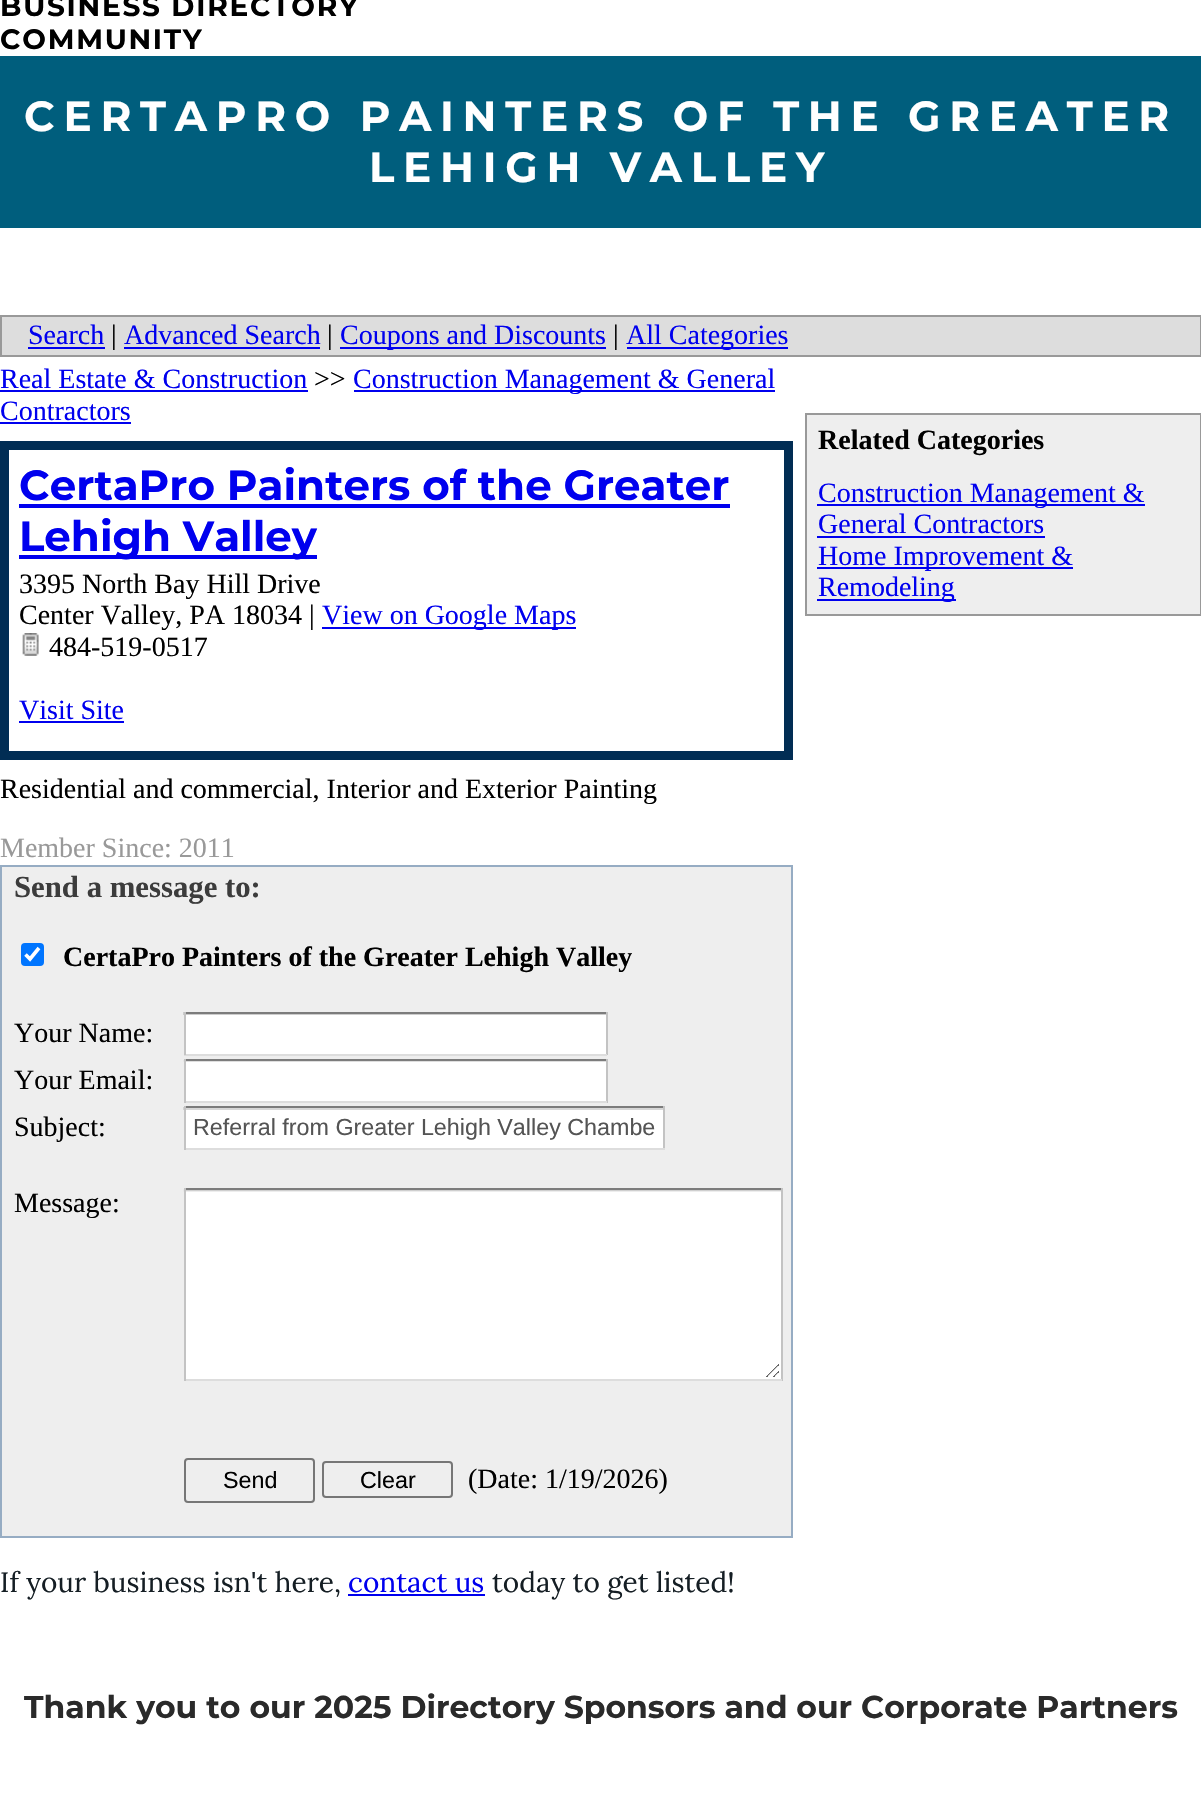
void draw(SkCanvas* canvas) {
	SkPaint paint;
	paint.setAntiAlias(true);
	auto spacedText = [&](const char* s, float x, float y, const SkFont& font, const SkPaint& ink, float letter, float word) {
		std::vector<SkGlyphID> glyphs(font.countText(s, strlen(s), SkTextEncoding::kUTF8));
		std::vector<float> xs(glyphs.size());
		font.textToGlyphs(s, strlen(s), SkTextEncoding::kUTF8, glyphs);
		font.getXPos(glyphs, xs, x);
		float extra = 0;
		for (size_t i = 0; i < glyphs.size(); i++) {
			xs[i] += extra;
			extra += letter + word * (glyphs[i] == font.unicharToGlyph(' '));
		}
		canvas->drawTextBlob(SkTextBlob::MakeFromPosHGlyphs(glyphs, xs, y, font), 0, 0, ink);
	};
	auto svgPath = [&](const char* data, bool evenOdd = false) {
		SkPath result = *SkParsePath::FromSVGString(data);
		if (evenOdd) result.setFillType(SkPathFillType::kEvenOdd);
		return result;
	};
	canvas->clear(0xffffffff);
	SkFont f1(fontMgr->matchFamilyStyle("Montserrat", SkFontStyle(100, SkFontStyle::kNormal_Width, SkFontStyle::kUpright_Slant)), 28);
	f1.setSubpixel(true);
	paint.setColor(0xff000000);
	spacedText("BUSINESS DIRECTORY", 0, 16, f1, paint, 1.75, 0);
	spacedText("COMMUNITY", 0, 49, f1, paint, 1.75, 0);
	paint.setColor(0xff005e7d);
	canvas->drawRect(SkRect::MakeXYWH(0, 56, 1201, 172), paint);
	SkFont f2(fontMgr->matchFamilyStyle("Montserrat", SkFontStyle(100, SkFontStyle::kNormal_Width, SkFontStyle::kUpright_Slant)), 42);
	f2.setSubpixel(true);
	paint.setColor(0xffffffff);
	spacedText("CERTAPRO PAINTERS OF THE GREATER", 24, 131, f2, paint, 8.75, 0);
	spacedText("LEHIGH VALLEY", 369, 182, f2, paint, 8.75, 0);
	paint.setColor(0xffdddddd);
	canvas->drawRect(SkRect::MakeXYWH(1, 316, 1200, 40), paint);
	paint.setStroke(true);
	paint.setStrokeWidth(2);
	paint.setColor(0xff999999);
	canvas->drawRect(SkRect::MakeXYWH(1, 316, 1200, 40), paint);
	SkFont f3(fontMgr->matchFamilyStyle("Liberation Serif", SkFontStyle::Normal()), 28);
	f3.setSubpixel(true);
	paint.setStroke(false);
	paint.setColor(0xff0000ee);
	canvas->drawString("Search", 28, 344, f3, paint);
	canvas->drawRect(SkRect::MakeXYWH(28, 347, 77, 2), paint);
	paint.setColor(0xff000000);
	canvas->drawString("|", 111, 344, f3, paint);
	paint.setColor(0xff0000ee);
	canvas->drawString("Advanced Search", 124, 344, f3, paint);
	canvas->drawRect(SkRect::MakeXYWH(124, 347, 196, 2), paint);
	paint.setColor(0xff000000);
	canvas->drawString("|", 327, 344, f3, paint);
	paint.setColor(0xff0000ee);
	canvas->drawRect(SkRect::MakeXYWH(340, 347, 266, 2), paint);
	canvas->drawString("Coupons and Discounts", 340, 344, f3, paint);
	paint.setColor(0xff000000);
	canvas->drawString("|", 613, 344, f3, paint);
	paint.setColor(0xff0000ee);
	canvas->drawRect(SkRect::MakeXYWH(627, 347, 161, 2), paint);
	canvas->drawString("All Categories", 626, 344, f3, paint);
	canvas->drawString("Real Estate & Construction", 0, 388, f3, paint);
	canvas->drawRect(SkRect::MakeXYWH(0, 390, 308, 2), paint);
	paint.setColor(0xff000000);
	canvas->drawString(">>", 314, 388, f3, paint);
	paint.setColor(0xff0000ee);
	canvas->drawRect(SkRect::MakeXYWH(354, 390, 421, 2), paint);
	canvas->drawString("Construction Management & General", 353, 388, f3, paint);
	canvas->drawString("Contractors", 0, 420, f3, paint);
	canvas->drawRect(SkRect::MakeXYWH(0, 422, 131, 2), paint);
	paint.setColor(0xff012d54);
	canvas->drawRect(SkRect::MakeXYWH(0, 441, 793, 319), paint);
	paint.setColor(0xffffffff);
	canvas->drawRect(SkRect::MakeXYWH(9, 450, 775, 301), paint);
	paint.setColor(0xff0000ee);
	canvas->drawString("CertaPro Painters of the Greater", 19, 500, f2, paint);
	canvas->drawRect(SkRect::MakeXYWH(19, 504, 711, 4), paint);
	canvas->drawRect(SkRect::MakeXYWH(19, 555, 298, 4), paint);
	canvas->drawString("Lehigh Valley", 19, 551, f2, paint);
	paint.setColor(0xff000000);
	canvas->drawString("3395 North Bay Hill Drive", 19, 593, f3, paint);
	canvas->drawString("Center Valley, PA 18034 |", 19, 624, f3, paint);
	paint.setColor(0xff0000ee);
	canvas->drawRect(SkRect::MakeXYWH(322, 627, 254, 2), paint);
	canvas->drawString("View on Google Maps", 322, 624, f3, paint);
	canvas->drawImageRect(SkImages::DeferredFromEncodedData(SkData::MakeFromFileName("img1.png")), SkRect::MakeXYWH(22, 633, 17, 23), SkSamplingOptions());
	paint.setColor(0xff000000);
	canvas->drawString("484-519-0517", 49, 656, f3, paint);
	paint.setColor(0xff0000ee);
	canvas->drawString("Visit Site", 19, 719, f3, paint);
	canvas->drawRect(SkRect::MakeXYWH(19, 721, 105, 2), paint);
	paint.setColor(0xff000000);
	canvas->drawString("Residential and commercial, Interior and Exterior Painting", 0, 798, f3, paint);
	paint.setColor(0xff999999);
	canvas->drawString("Member Since: 2011", 0, 857, f3, paint);
	paint.setColor(0xffeeeeee);
	canvas->drawRect(SkRect::MakeXYWH(2, 867, 789, 669), paint);
	paint.setColor(0xffd3d3d3);
	canvas->drawRect(SkRect::MakeXYWH(183, 1107, 1, 3), paint);
	paint.setStroke(true);
	paint.setColor(0xff96acc3);
	canvas->drawRect(SkRect::MakeXYWH(1, 866, 791, 671), paint);
	SkFont f4(fontMgr->matchFamilyStyle("Liberation Serif", SkFontStyle::Bold()), 30.75);
	f4.setSubpixel(true);
	paint.setStroke(false);
	paint.setColor(0xff3c3c3c);
	canvas->drawString("Send a message to:", 14, 897, f4, paint);
	paint.setColor(0xff0075ff);
	canvas->drawRoundRect(SkRect::MakeXYWH(21, 943, 23, 23), 4, 4, paint);
	paint.setStroke(true);
	paint.setStrokeWidth(3.6);
	paint.setColor(0xffffffff);
	canvas->drawPath(svgPath("M25.5 954.5L30 959L39 948"), paint);
	SkFont f5(fontMgr->matchFamilyStyle("Liberation Serif", SkFontStyle::Bold()), 28);
	f5.setSubpixel(true);
	paint.setStroke(false);
	paint.setColor(0xff000000);
	canvas->drawString("CertaPro Painters of the Greater Lehigh Valley", 63, 966, f5, paint);
	canvas->drawString("Your Name:", 14, 1042, f3, paint);
	paint.setColor(0xffffffff);
	canvas->drawRect(SkRect::MakeXYWH(186, 1015, 420, 39), paint);
	paint.setColor(0xffcccccc);
	canvas->drawRect(SkRect::MakeXYWH(183, 1012, 425, 3), paint);
	paint.setColor(0xff7c7c7c);
	canvas->drawRect(SkRect::MakeXYWH(184, 1012, 423, 2), paint);
	paint.setColor(0xffc3c3c3);
	canvas->drawRect(SkRect::MakeXYWH(606, 1012, 2, 43), paint);
	paint.setColor(0xffdddddd);
	canvas->drawRect(SkRect::MakeXYWH(184, 1054, 423, 2), paint);
	paint.setColor(0xffc3c3c3);
	canvas->drawRect(SkRect::MakeXYWH(184, 1012, 2, 43), paint);
	paint.setColor(0xff000000);
	canvas->drawString("Your Email:", 14, 1089, f3, paint);
	paint.setColor(0xffffffff);
	canvas->drawRect(SkRect::MakeXYWH(186, 1061, 420, 40), paint);
	canvas->drawImageRect(SkImages::DeferredFromEncodedData(SkData::MakeFromFileName("img2.png")), SkRect::MakeXYWH(183, 1060, 423, 2), SkSamplingOptions());
	paint.setColor(0xff7c7c7c);
	canvas->drawRect(SkRect::MakeXYWH(184, 1059, 423, 2), paint);
	paint.setColor(0xffc3c3c3);
	canvas->drawRect(SkRect::MakeXYWH(606, 1059, 2, 44), paint);
	paint.setColor(0xffdddddd);
	canvas->drawRect(SkRect::MakeXYWH(184, 1101, 423, 2), paint);
	paint.setColor(0xffc3c3c3);
	canvas->drawRect(SkRect::MakeXYWH(184, 1059, 2, 44), paint);
	paint.setColor(0xff000000);
	canvas->drawString("Subject:", 14, 1136, f3, paint);
	paint.setColor(0xffffffff);
	canvas->drawRect(SkRect::MakeXYWH(186, 1110, 477, 38), paint);
	paint.setColor(0xffd7d7d7);
	canvas->drawRect(SkRect::MakeXYWH(184, 1108, 481, 2), paint);
	paint.setColor(0xff7c7c7c);
	canvas->drawRect(SkRect::MakeXYWH(184, 1106, 481, 2), paint);
	paint.setColor(0xffc3c3c3);
	canvas->drawRect(SkRect::MakeXYWH(663, 1106, 2, 44), paint);
	paint.setColor(0xffdddddd);
	canvas->drawRect(SkRect::MakeXYWH(184, 1148, 481, 2), paint);
	paint.setColor(0xffc3c3c3);
	canvas->drawRect(SkRect::MakeXYWH(184, 1106, 2, 44), paint);
	SkFont f6(fontMgr->matchFamilyStyle("Liberation Sans", SkFontStyle::Normal()), 23.3);
	f6.setSubpixel(true);
	paint.setColor(0xff545454);
	canvas->drawString("Referral from Greater Lehigh Valley Chambe", 193, 1135, f6, paint);
	paint.setColor(0xff000000);
	canvas->drawString("Message:", 14, 1212, f3, paint);
	paint.setColor(0xffffffff);
	canvas->drawRect(SkRect::MakeXYWH(186, 1190, 595, 189), paint);
	canvas->drawImageRect(SkImages::DeferredFromEncodedData(SkData::MakeFromFileName("img3.png")), SkRect::MakeXYWH(183, 1189, 598, 188), SkSamplingOptions());
	paint.setColor(0xff7c7c7c);
	canvas->drawRect(SkRect::MakeXYWH(184, 1188, 598, 2), paint);
	paint.setColor(0xffc3c3c3);
	canvas->drawRect(SkRect::MakeXYWH(781, 1188, 2, 193), paint);
	paint.setColor(0xffdddddd);
	canvas->drawRect(SkRect::MakeXYWH(184, 1379, 598, 2), paint);
	paint.setColor(0xffc3c3c3);
	canvas->drawRect(SkRect::MakeXYWH(184, 1188, 2, 193), paint);
	paint.setStroke(true);
	paint.setStrokeWidth(2);
	paint.setColor(0xff767676);
	canvas->drawRoundRect(SkRect::MakeXYWH(185, 1459, 129, 43), 3, 3, paint);
	paint.setStroke(false);
	paint.setColor(0xff000000);
	canvas->drawString("Send", 223, 1488, f6, paint);
	paint.setStroke(true);
	paint.setColor(0xff767676);
	canvas->drawRoundRect(SkRect::MakeXYWH(323, 1462, 129, 35), 3, 3, paint);
	paint.setStroke(false);
	paint.setColor(0xff000000);
	canvas->drawString("Clear", 360, 1488, f6, paint);
	canvas->drawString("(Date: 1/19/2026)", 468, 1488, f3, paint);
	SkFont f7(fontMgr->matchFamilyStyle("Lora", SkFontStyle::Normal()), 28);
	f7.setSubpixel(true);
	paint.setColor(0xff151e24);
	canvas->drawString("If your business isn't here,", 0, 1592, f7, paint);
	paint.setColor(0xff0000ee);
	canvas->drawString("contact us", 348, 1592, f7, paint);
	canvas->drawRect(SkRect::MakeXYWH(348, 1594, 137, 2), paint);
	paint.setColor(0xff151e24);
	canvas->drawString("today to get listed!", 492, 1592, f7, paint);
	paint.setColor(0xffeeeeee);
	canvas->drawRect(SkRect::MakeXYWH(806, 414, 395, 201), paint);
	paint.setStroke(true);
	paint.setColor(0xff999999);
	canvas->drawRect(SkRect::MakeXYWH(806, 414, 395, 201), paint);
	paint.setStroke(false);
	paint.setColor(0xff000000);
	canvas->drawString("Related Categories", 818, 449, f5, paint);
	paint.setColor(0xff0000ee);
	canvas->drawRect(SkRect::MakeXYWH(817, 504, 328, 2), paint);
	canvas->drawString("Construction Management &", 818, 502, f3, paint);
	canvas->drawString("General Contractors", 818, 533, f3, paint);
	canvas->drawRect(SkRect::MakeXYWH(817, 536, 228, 2), paint);
	canvas->drawRect(SkRect::MakeXYWH(817, 567, 256, 2), paint);
	canvas->drawString("Home Improvement &", 818, 565, f3, paint);
	canvas->drawRect(SkRect::MakeXYWH(817, 599, 139, 2), paint);
	canvas->drawString("Remodeling", 818, 596, f3, paint);
	SkFont f8(fontMgr->matchFamilyStyle("Montserrat", SkFontStyle(100, SkFontStyle::kNormal_Width, SkFontStyle::kUpright_Slant)), 31.5);
	f8.setSubpixel(true);
	paint.setColor(0xff2a2a2a);
	canvas->drawString("Thank you to our 2025 Directory Sponsors and our Corporate Partners", 24, 1718, f8, paint);
}
